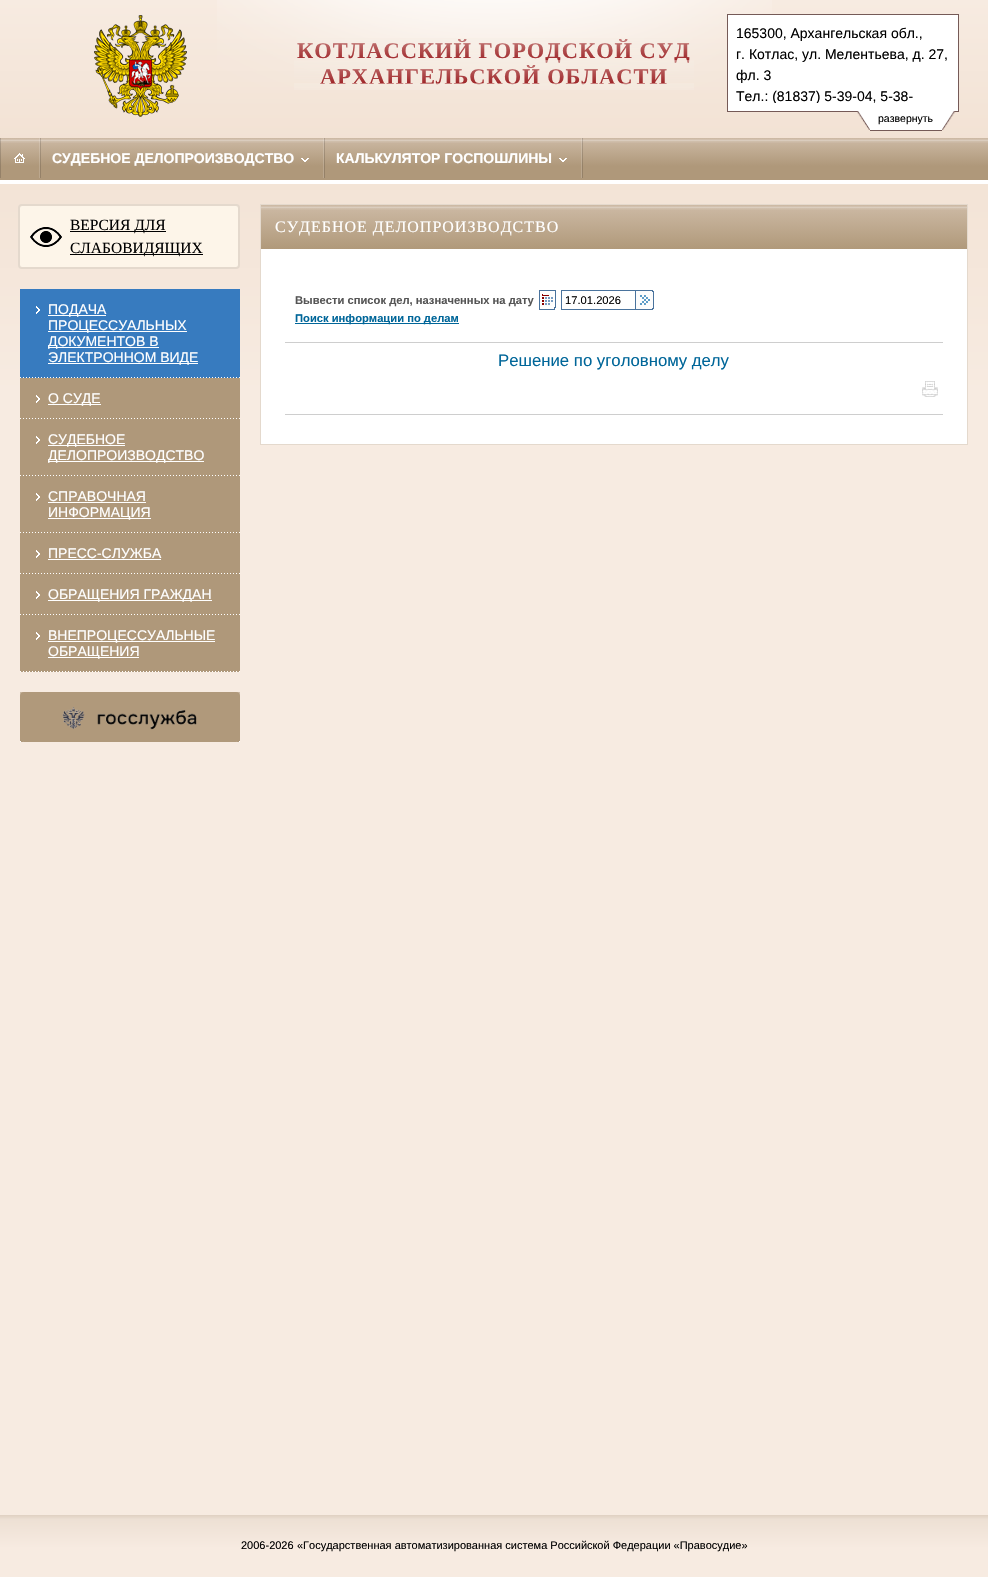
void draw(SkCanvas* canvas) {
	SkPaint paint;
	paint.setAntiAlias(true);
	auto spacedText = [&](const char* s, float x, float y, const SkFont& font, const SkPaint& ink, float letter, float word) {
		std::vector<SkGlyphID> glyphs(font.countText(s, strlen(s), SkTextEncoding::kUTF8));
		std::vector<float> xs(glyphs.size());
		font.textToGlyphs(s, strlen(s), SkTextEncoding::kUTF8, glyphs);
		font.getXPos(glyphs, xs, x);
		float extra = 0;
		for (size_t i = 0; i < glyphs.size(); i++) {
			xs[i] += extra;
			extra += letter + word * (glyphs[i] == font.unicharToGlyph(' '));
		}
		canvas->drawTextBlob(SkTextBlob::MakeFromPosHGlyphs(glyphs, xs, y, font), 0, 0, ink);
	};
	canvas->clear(0xffffffff);
	{
		const SkColor colors[] = {0xfff7ebe1, 0xfff2e2d4, 0xfff7ebe1};
		const float stops[] = {0, 0.09, 0.25};
		const SkPoint ends[] = {{494, 0}, {494, 1577}};
		paint.setShader(SkGradientShader::MakeLinear(ends, colors, stops, 3, SkTileMode::kClamp));
		paint.setAlpha(255);
	}
	canvas->drawRect(SkRect::MakeXYWH(0, 0, 988, 1515), paint);
	canvas->drawImageRect(SkImages::DeferredFromEncodedData(SkData::MakeFromFileName("img1.png")), SkRect::MakeXYWH(217, 0, 555, 90), SkSamplingOptions());
	canvas->drawImageRect(SkImages::DeferredFromEncodedData(SkData::MakeFromFileName("img2.png")), SkRect::MakeXYWH(94, 15, 93, 102), SkSamplingOptions());
	SkFont f1(fontMgr->matchFamilyStyle("Liberation Serif", SkFontStyle::Bold()), 22.4);
	f1.setSubpixel(true);
	paint.setShader(nullptr);
	paint.setColor(0xffa0282b);
	spacedText("КОТЛАССКИЙ ГОРОДСКОЙ СУД", 297, 58, f1, paint, 1, 0);
	{
		const SkColor colors[] = {0x70f5ede4, 0x00f5ede4};
		const float stops[] = {0, 1};
		const SkPoint ends[] = {{299, 38}, {299, 60}};
		paint.setShader(SkGradientShader::MakeLinear(ends, colors, stops, 2, SkTileMode::kClamp));
		paint.setAlpha(255);
	}
	canvas->drawRect(SkRect::MakeXYWH(297, 38, 393, 21), paint);
	paint.setShader(nullptr);
	paint.setColor(0xffa0282b);
	spacedText("АРХАНГЕЛЬСКОЙ ОБЛАСТИ", 320, 84, f1, paint, 1, 0);
	{
		const SkColor colors[] = {0x70f5ede4, 0x00f5ede4};
		const float stops[] = {0, 1};
		const SkPoint ends[] = {{299, 60}, {299, 83}};
		paint.setShader(SkGradientShader::MakeLinear(ends, colors, stops, 2, SkTileMode::kClamp));
		paint.setAlpha(255);
	}
	canvas->drawRect(SkRect::MakeXYWH(294, 60, 400, 22), paint);
	{
		const SkColor colors[] = {0x70f5ede4, 0x00f5ede4};
		const float stops[] = {0, 1};
		const SkPoint ends[] = {{299, 83}, {299, 105}};
		paint.setShader(SkGradientShader::MakeLinear(ends, colors, stops, 2, SkTileMode::kClamp));
		paint.setAlpha(255);
	}
	canvas->drawRect(SkRect::MakeXYWH(294, 83, 400, 7), paint);
	paint.setShader(nullptr);
	paint.setColor(0xffffffff);
	canvas->drawRect(SkRect::MakeXYWH(727.5, 14.5, 231, 97), paint);
	paint.setStroke(true);
	paint.setStrokeWidth(1);
	paint.setColor(0xff755a57);
	canvas->drawRect(SkRect::MakeXYWH(727.5, 14.5, 231, 97), paint);
	SkFont f2(fontMgr->matchFamilyStyle("Liberation Sans", SkFontStyle::Normal()), 14);
	f2.setSubpixel(true);
	paint.setStroke(false);
	paint.setColor(0xff000000);
	canvas->drawString("165300, Архангельская обл.,", 736, 38, f2, paint);
	canvas->drawString("г. Котлас, ул. Мелентьева, д. 27,", 736, 59, f2, paint);
	canvas->drawString("фл. 3", 736, 80, f2, paint);
	canvas->save();
	canvas->clipRect(SkRect::MakeXYWH(736, 23, 214, 80));
	canvas->drawString("Тел.: (81837) 5-39-04, 5-38-", 736, 101, f2, paint);
	canvas->restore();
	canvas->drawImageRect(SkImages::DeferredFromEncodedData(SkData::MakeFromFileName("img3.png")), SkRect::MakeXYWH(857, 111, 13, 19), SkSamplingOptions());
	paint.setColor(0xffffffff);
	canvas->drawRect(SkRect::MakeXYWH(870, 111, 72, 19), paint);
	paint.setColor(0xff755a57);
	canvas->drawRect(SkRect::MakeXYWH(870, 130, 72, 1), paint);
	SkFont f3(fontMgr->matchFamilyStyle("Liberation Sans", SkFontStyle::Normal()), 10.5);
	f3.setSubpixel(true);
	paint.setColor(0xff000000);
	canvas->drawString("развернуть", 878, 122, f3, paint);
	canvas->drawImageRect(SkImages::DeferredFromEncodedData(SkData::MakeFromFileName("img4.png")), SkRect::MakeXYWH(942, 111, 14, 19), SkSamplingOptions());
	canvas->drawImageRect(SkImages::DeferredFromEncodedData(SkData::MakeFromFileName("img5.png")), SkRect::MakeXYWH(0, 138, 988, 42), SkSamplingOptions());
	paint.setColor(0x26000000);
	canvas->drawRect(SkRect::MakeXYWH(0, 138, 1, 40), paint);
	canvas->drawImageRect(SkImages::DeferredFromEncodedData(SkData::MakeFromFileName("img6.png")), SkRect::MakeXYWH(14, 153, 11, 10), SkSamplingOptions());
	paint.setColor(0x26ffffff);
	canvas->drawRect(SkRect::MakeXYWH(39, 138, 1, 40), paint);
	paint.setColor(0x26000000);
	canvas->drawRect(SkRect::MakeXYWH(40, 138, 1, 40), paint);
	SkFont f4(fontMgr->matchFamilyStyle("Liberation Sans", SkFontStyle::Bold()), 14);
	f4.setSubpixel(true);
	paint.setColor(0xffffffff);
	canvas->drawString("СУДЕБНОЕ ДЕЛОПРОИЗВОДСТВО", 52, 163, f4, paint);
	canvas->drawRect(SkRect::MakeXYWH(307, 158, 2, 1), paint);
	canvas->drawRect(SkRect::MakeXYWH(301, 158, 2, 1), paint);
	canvas->drawRect(SkRect::MakeXYWH(306, 159, 2, 1), paint);
	canvas->drawRect(SkRect::MakeXYWH(302, 159, 2, 1), paint);
	canvas->drawRect(SkRect::MakeXYWH(303, 160, 4, 1), paint);
	canvas->drawRect(SkRect::MakeXYWH(304, 161, 2, 1), paint);
	paint.setColor(0x26000000);
	canvas->drawRect(SkRect::MakeXYWH(582, 138, 1, 40), paint);
	paint.setColor(0x26ffffff);
	canvas->drawRect(SkRect::MakeXYWH(323, 138, 1, 40), paint);
	canvas->drawRect(SkRect::MakeXYWH(581, 138, 1, 40), paint);
	paint.setColor(0x26000000);
	canvas->drawRect(SkRect::MakeXYWH(324, 138, 1, 40), paint);
	paint.setColor(0xffffffff);
	canvas->drawString("КАЛЬКУЛЯТОР ГОСПОШЛИНЫ", 336, 163, f4, paint);
	canvas->drawRect(SkRect::MakeXYWH(565, 158, 2, 1), paint);
	canvas->drawRect(SkRect::MakeXYWH(559, 158, 2, 1), paint);
	canvas->drawRect(SkRect::MakeXYWH(564, 159, 2, 1), paint);
	canvas->drawRect(SkRect::MakeXYWH(560, 159, 2, 1), paint);
	canvas->drawRect(SkRect::MakeXYWH(561, 160, 4, 1), paint);
	canvas->drawRect(SkRect::MakeXYWH(562, 161, 2, 1), paint);
	canvas->drawRect(SkRect::MakeXYWH(0, 180, 988, 4), paint);
	paint.setColor(0xfffdf5e9);
	canvas->drawRoundRect(SkRect::MakeXYWH(19, 205, 220, 63), 3, 3, paint);
	paint.setStroke(true);
	paint.setStrokeWidth(2);
	paint.setColor(0xffe4d9cd);
	canvas->drawRoundRect(SkRect::MakeXYWH(19, 205, 220, 63), 3, 3, paint);
	canvas->drawImageRect(SkImages::DeferredFromEncodedData(SkData::MakeFromFileName("img7.png")), SkRect::MakeXYWH(30, 227, 32, 20), SkSamplingOptions());
	paint.setStroke(false);
	paint.setColor(0xff000000);
	canvas->drawRect(SkRect::MakeXYWH(70, 231, 96, 1), paint);
	SkFont f5(fontMgr->matchFamilyStyle("Liberation Serif", SkFontStyle::Normal()), 15.5);
	f5.setSubpixel(true);
	canvas->drawString("ВЕРСИЯ ДЛЯ", 70, 230, f5, paint);
	canvas->drawRect(SkRect::MakeXYWH(70, 254, 133, 1), paint);
	canvas->drawString("СЛАБОВИДЯЩИХ", 70, 253, f5, paint);
	canvas->drawImageRect(SkImages::DeferredFromEncodedData(SkData::MakeFromFileName("img8.png")), SkRect::MakeXYWH(20, 378, 220, 294), SkSamplingOptions());
	paint.setColor(0xff377bbf);
	canvas->drawRect(SkRect::MakeXYWH(20, 289, 220, 89), paint);
	canvas->drawImageRect(SkImages::DeferredFromEncodedData(SkData::MakeFromFileName("img9.png")), SkRect::MakeXYWH(20, 377, 220, 1), SkSamplingOptions());
	paint.setColor(0xffffffff);
	canvas->drawRect(SkRect::MakeXYWH(36, 306, 1, 2), paint);
	canvas->drawRect(SkRect::MakeXYWH(36, 312, 1, 2), paint);
	canvas->drawRect(SkRect::MakeXYWH(37, 307, 1, 2), paint);
	canvas->drawRect(SkRect::MakeXYWH(37, 311, 1, 2), paint);
	canvas->drawRect(SkRect::MakeXYWH(38, 308, 1, 4), paint);
	canvas->drawRect(SkRect::MakeXYWH(39, 309, 1, 2), paint);
	canvas->drawRect(SkRect::MakeXYWH(48, 315, 58, 1), paint);
	canvas->drawString("ПОДАЧА", 48, 314, f2, paint);
	canvas->drawRect(SkRect::MakeXYWH(48, 331, 139, 1), paint);
	canvas->drawString("ПРОЦЕССУАЛЬНЫХ", 48, 330, f2, paint);
	canvas->drawRect(SkRect::MakeXYWH(48, 347, 111, 1), paint);
	canvas->drawString("ДОКУМЕНТОВ В", 48, 346, f2, paint);
	canvas->drawRect(SkRect::MakeXYWH(48, 363, 150, 1), paint);
	canvas->drawString("ЭЛЕКТРОННОМ ВИДЕ", 48, 362, f2, paint);
	canvas->drawImageRect(SkImages::DeferredFromEncodedData(SkData::MakeFromFileName("img10.png")), SkRect::MakeXYWH(20, 418, 220, 1), SkSamplingOptions());
	canvas->drawRect(SkRect::MakeXYWH(36, 395, 1, 2), paint);
	canvas->drawRect(SkRect::MakeXYWH(36, 401, 1, 2), paint);
	canvas->drawRect(SkRect::MakeXYWH(37, 396, 1, 2), paint);
	canvas->drawRect(SkRect::MakeXYWH(37, 400, 1, 2), paint);
	canvas->drawRect(SkRect::MakeXYWH(38, 397, 1, 4), paint);
	canvas->drawRect(SkRect::MakeXYWH(39, 398, 1, 2), paint);
	canvas->drawRect(SkRect::MakeXYWH(48, 404, 53, 1), paint);
	canvas->drawString("О СУДЕ", 48, 403, f2, paint);
	canvas->drawImageRect(SkImages::DeferredFromEncodedData(SkData::MakeFromFileName("img10.png")), SkRect::MakeXYWH(20, 475, 220, 1), SkSamplingOptions());
	canvas->drawRect(SkRect::MakeXYWH(36, 436, 1, 2), paint);
	canvas->drawRect(SkRect::MakeXYWH(36, 442, 1, 2), paint);
	canvas->drawRect(SkRect::MakeXYWH(37, 437, 1, 2), paint);
	canvas->drawRect(SkRect::MakeXYWH(37, 441, 1, 2), paint);
	canvas->drawRect(SkRect::MakeXYWH(38, 438, 1, 4), paint);
	canvas->drawRect(SkRect::MakeXYWH(39, 439, 1, 2), paint);
	canvas->drawRect(SkRect::MakeXYWH(48, 445, 77, 1), paint);
	canvas->drawString("СУДЕБНОЕ", 48, 444, f2, paint);
	canvas->drawRect(SkRect::MakeXYWH(48, 461, 156, 1), paint);
	canvas->drawString("ДЕЛОПРОИЗВОДСТВО", 48, 460, f2, paint);
	canvas->drawImageRect(SkImages::DeferredFromEncodedData(SkData::MakeFromFileName("img10.png")), SkRect::MakeXYWH(20, 532, 220, 1), SkSamplingOptions());
	canvas->drawRect(SkRect::MakeXYWH(36, 493, 1, 2), paint);
	canvas->drawRect(SkRect::MakeXYWH(36, 499, 1, 2), paint);
	canvas->drawRect(SkRect::MakeXYWH(37, 494, 1, 2), paint);
	canvas->drawRect(SkRect::MakeXYWH(37, 498, 1, 2), paint);
	canvas->drawRect(SkRect::MakeXYWH(38, 495, 1, 4), paint);
	canvas->drawRect(SkRect::MakeXYWH(39, 496, 1, 2), paint);
	canvas->drawString("СПРАВОЧНАЯ", 48, 501, f2, paint);
	canvas->drawRect(SkRect::MakeXYWH(48, 502, 98, 1), paint);
	canvas->drawRect(SkRect::MakeXYWH(48, 518, 103, 1), paint);
	canvas->drawString("ИНФОРМАЦИЯ", 48, 517, f2, paint);
	canvas->drawImageRect(SkImages::DeferredFromEncodedData(SkData::MakeFromFileName("img10.png")), SkRect::MakeXYWH(20, 573, 220, 1), SkSamplingOptions());
	canvas->drawRect(SkRect::MakeXYWH(36, 550, 1, 2), paint);
	canvas->drawRect(SkRect::MakeXYWH(36, 556, 1, 2), paint);
	canvas->drawRect(SkRect::MakeXYWH(37, 551, 1, 2), paint);
	canvas->drawRect(SkRect::MakeXYWH(37, 555, 1, 2), paint);
	canvas->drawRect(SkRect::MakeXYWH(38, 552, 1, 4), paint);
	canvas->drawRect(SkRect::MakeXYWH(39, 553, 1, 2), paint);
	canvas->drawString("ПРЕСС-СЛУЖБА", 48, 558, f2, paint);
	canvas->drawRect(SkRect::MakeXYWH(48, 559, 113, 1), paint);
	canvas->drawImageRect(SkImages::DeferredFromEncodedData(SkData::MakeFromFileName("img10.png")), SkRect::MakeXYWH(20, 614, 220, 1), SkSamplingOptions());
	canvas->drawRect(SkRect::MakeXYWH(36, 591, 1, 2), paint);
	canvas->drawRect(SkRect::MakeXYWH(36, 597, 1, 2), paint);
	canvas->drawRect(SkRect::MakeXYWH(37, 592, 1, 2), paint);
	canvas->drawRect(SkRect::MakeXYWH(37, 596, 1, 2), paint);
	canvas->drawRect(SkRect::MakeXYWH(38, 593, 1, 4), paint);
	canvas->drawRect(SkRect::MakeXYWH(39, 594, 1, 2), paint);
	canvas->drawRect(SkRect::MakeXYWH(48, 600, 164, 1), paint);
	canvas->drawString("ОБРАЩЕНИЯ ГРАЖДАН", 48, 599, f2, paint);
	canvas->drawImageRect(SkImages::DeferredFromEncodedData(SkData::MakeFromFileName("img10.png")), SkRect::MakeXYWH(20, 671, 220, 1), SkSamplingOptions());
	canvas->drawRect(SkRect::MakeXYWH(36, 632, 1, 2), paint);
	canvas->drawRect(SkRect::MakeXYWH(36, 638, 1, 2), paint);
	canvas->drawRect(SkRect::MakeXYWH(37, 633, 1, 2), paint);
	canvas->drawRect(SkRect::MakeXYWH(37, 637, 1, 2), paint);
	canvas->drawRect(SkRect::MakeXYWH(38, 634, 1, 4), paint);
	canvas->drawRect(SkRect::MakeXYWH(39, 635, 1, 2), paint);
	canvas->drawRect(SkRect::MakeXYWH(48, 641, 167, 1), paint);
	canvas->drawString("ВНЕПРОЦЕССУАЛЬНЫЕ", 48, 640, f2, paint);
	canvas->drawRect(SkRect::MakeXYWH(48, 657, 91, 1), paint);
	canvas->drawString("ОБРАЩЕНИЯ", 48, 656, f2, paint);
	canvas->drawImageRect(SkImages::DeferredFromEncodedData(SkData::MakeFromFileName("img11.png")), SkRect::MakeXYWH(20, 692, 220, 50), SkSamplingOptions());
	canvas->drawImageRect(SkImages::DeferredFromEncodedData(SkData::MakeFromFileName("img10.png")), SkRect::MakeXYWH(20, 741, 220, 1), SkSamplingOptions());
	paint.setColor(0xffb0997b);
	canvas->drawRoundRect(SkRect::MakeXYWH(20, 692, 220, 50), 4, 4, paint);
	canvas->drawImageRect(SkImages::DeferredFromEncodedData(SkData::MakeFromFileName("img12.png")), SkRect::MakeXYWH(62, 707, 135, 23), SkSamplingOptions());
	paint.setColor(0xffffffff);
	canvas->drawRect(SkRect::MakeXYWH(261, 249, 706, 195), paint);
	paint.setStroke(true);
	paint.setStrokeWidth(1);
	paint.setColor(0xffe4d9cd);
	canvas->drawRect(SkRect::MakeXYWH(260.5, 204.5, 707, 240), paint);
	canvas->drawImageRect(SkImages::DeferredFromEncodedData(SkData::MakeFromFileName("img13.png")), SkRect::MakeXYWH(261, 205, 706, 44), SkSamplingOptions());
	SkFont f6(fontMgr->matchFamilyStyle("Liberation Serif", SkFontStyle::Normal()), 16);
	f6.setSubpixel(true);
	paint.setStroke(false);
	paint.setColor(0xffffffff);
	spacedText("СУДЕБНОЕ ДЕЛОПРОИЗВОДСТВО", 275, 232, f6, paint, 1, 0);
	SkFont f7(fontMgr->matchFamilyStyle("Liberation Sans", SkFontStyle::Bold()), 11.2);
	f7.setSubpixel(true);
	paint.setColor(0xff555555);
	canvas->drawString("Вывести список дел, назначенных на дату", 295, 304, f7, paint);
	canvas->drawImageRect(SkImages::DeferredFromEncodedData(SkData::MakeFromFileName("img14.png")), SkRect::MakeXYWH(539, 290, 17, 20), SkSamplingOptions());
	paint.setStroke(true);
	paint.setColor(0xff4a739d);
	canvas->drawRect(SkRect::MakeXYWH(561.5, 290.5, 74, 19), paint);
	SkFont f8(fontMgr->matchFamilyStyle("Liberation Sans", SkFontStyle::Normal()), 11.2);
	f8.setSubpixel(true);
	paint.setStroke(false);
	paint.setColor(0xff000000);
	canvas->drawString("17.01.2026", 565, 304, f8, paint);
	canvas->drawImageRect(SkImages::DeferredFromEncodedData(SkData::MakeFromFileName("img15.png")), SkRect::MakeXYWH(636, 290, 18, 20), SkSamplingOptions());
	paint.setColor(0xff006699);
	canvas->drawRect(SkRect::MakeXYWH(295, 323, 164, 1), paint);
	canvas->drawString("Поиск информации по делам", 295, 322, f7, paint);
	paint.setColor(0xffcecece);
	canvas->drawRect(SkRect::MakeXYWH(285, 342, 658, 1), paint);
	SkFont f9(fontMgr->matchFamilyStyle("Liberation Sans", SkFontStyle::Normal()), 16.75);
	f9.setSubpixel(true);
	paint.setColor(0xff006699);
	canvas->drawString("Решение по уголовному делу", 498, 366, f9, paint);
	canvas->drawImageRect(SkImages::DeferredFromEncodedData(SkData::MakeFromFileName("img16.png")), SkRect::MakeXYWH(922, 381, 16, 16), SkSamplingOptions());
	paint.setColor(0xffcecece);
	canvas->drawRect(SkRect::MakeXYWH(285, 414, 658, 1), paint);
	{
		const SkColor colors[] = {0xffdfd0c2, 0xffede0d4, 0xfff7ebe1};
		const float stops[] = {0, 0.07, 0.54};
		const SkPoint ends[] = {{494, 1515}, {494, 1577}};
		paint.setShader(SkGradientShader::MakeLinear(ends, colors, stops, 3, SkTileMode::kClamp));
		paint.setAlpha(255);
	}
	canvas->drawRect(SkRect::MakeXYWH(0, 1515, 988, 62), paint);
	SkFont f10(fontMgr->matchFamilyStyle("Liberation Sans", SkFontStyle::Normal()), 11);
	f10.setSubpixel(true);
	paint.setShader(nullptr);
	paint.setColor(0xff000000);
	canvas->drawString("2006-2026", 241, 1549, f10, paint);
	canvas->drawString("«Государственная автоматизированная система Российской Федерации «Правосудие»", 297, 1549, f10, paint);
}
